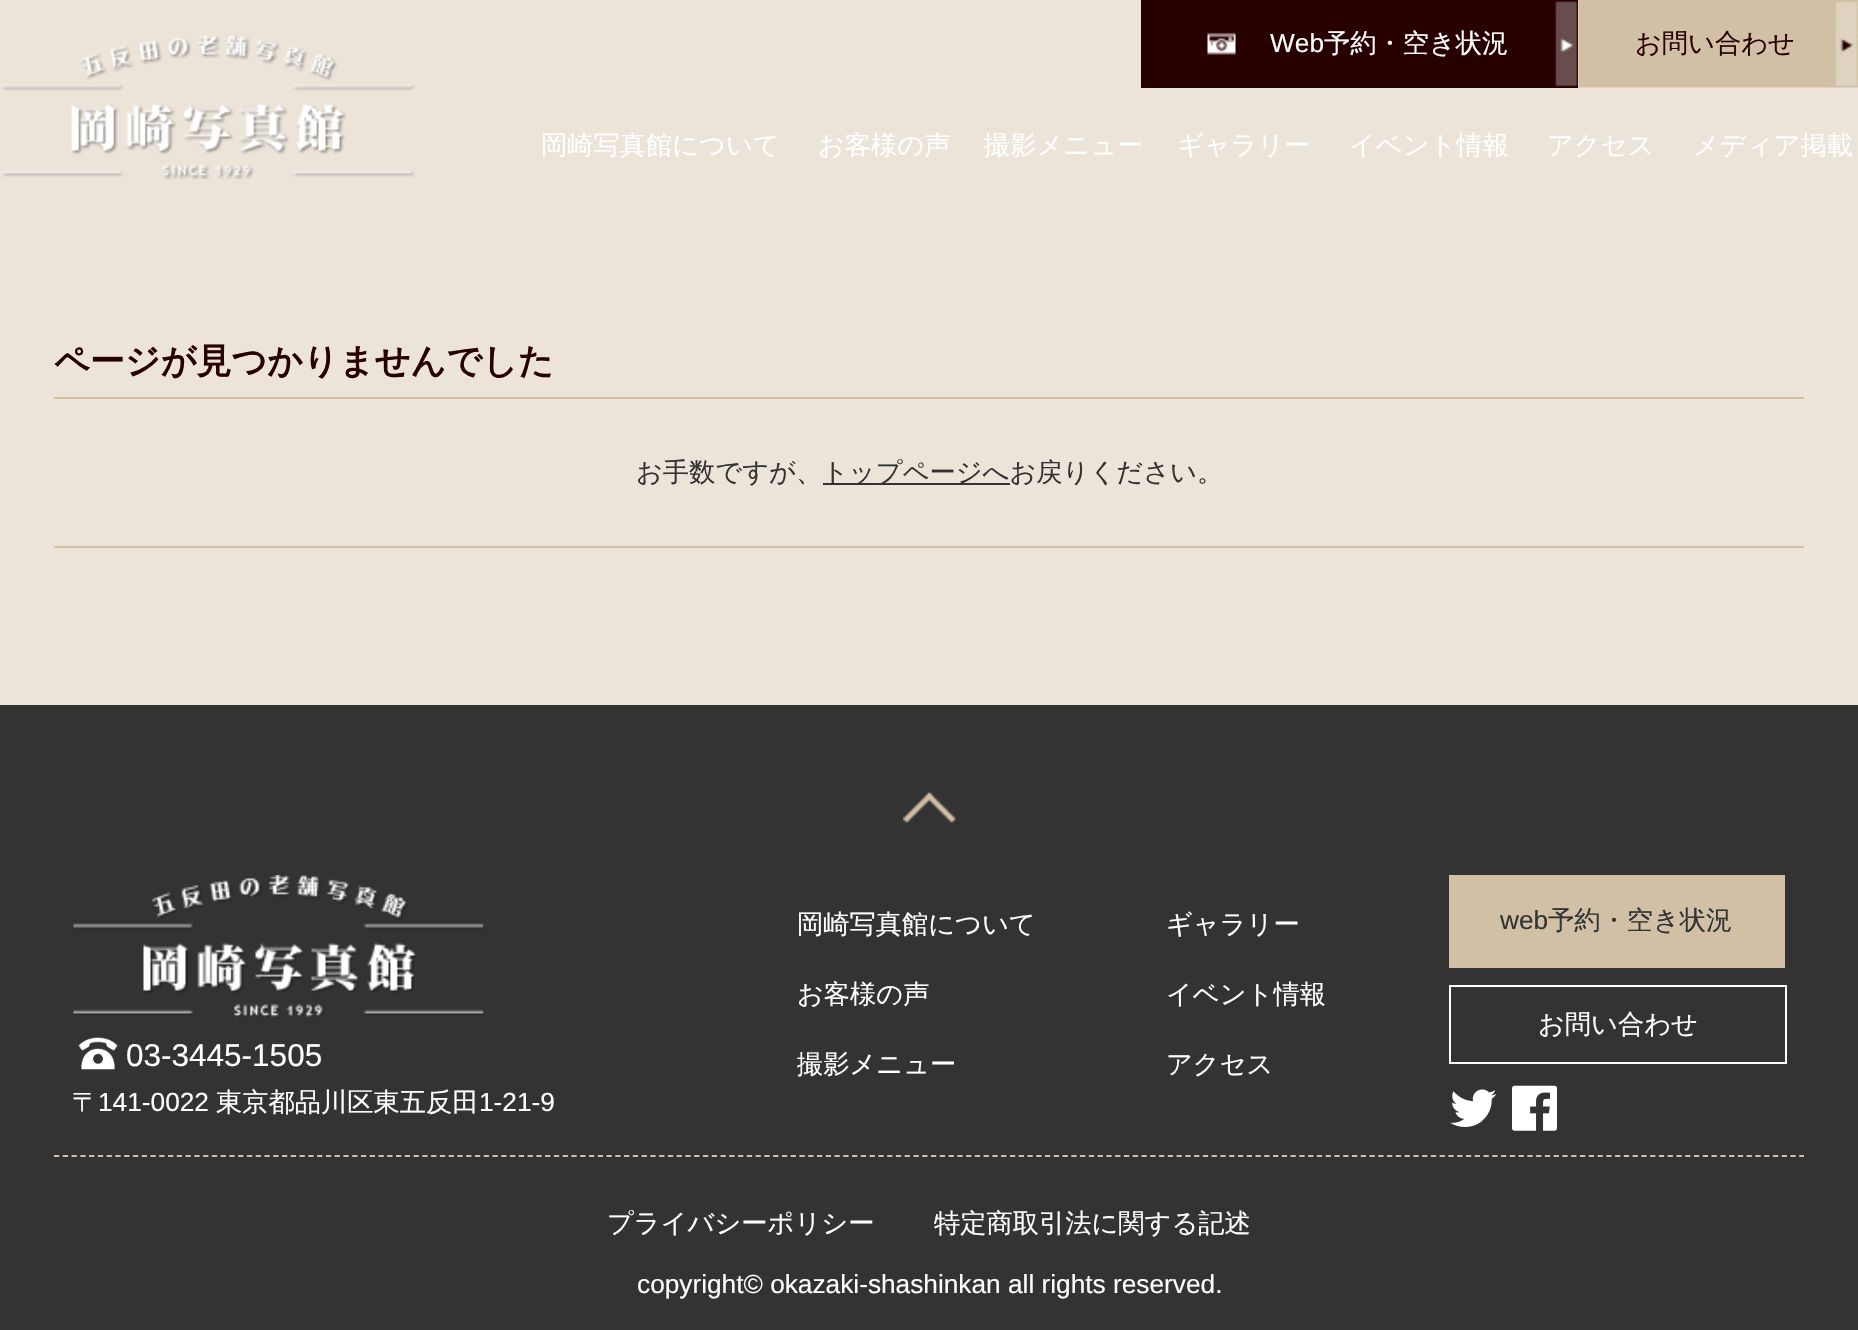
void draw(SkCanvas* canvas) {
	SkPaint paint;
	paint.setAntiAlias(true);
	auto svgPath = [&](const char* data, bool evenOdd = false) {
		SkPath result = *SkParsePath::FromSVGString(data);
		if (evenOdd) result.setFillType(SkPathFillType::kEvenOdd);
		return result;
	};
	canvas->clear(0xffece4d9);
	canvas->drawImageRect(SkImages::DeferredFromEncodedData(SkData::MakeFromFileName("img1.png")), SkRect::MakeXYWH(1, 35, 414, 144), SkSamplingOptions());
	canvas->drawImageRect(SkImages::DeferredFromEncodedData(SkData::MakeFromFileName("img2.png")), SkRect::MakeXYWH(1141, 0, 437, 88), SkSamplingOptions());
	canvas->drawImageRect(SkImages::DeferredFromEncodedData(SkData::MakeFromFileName("img3.png")), SkRect::MakeXYWH(1207, 32, 29, 23), SkSamplingOptions());
	SkFont f1(fontMgr->matchFamilyStyle("Liberation Sans", SkFontStyle::Normal()), 26.25);
	f1.setSubpixel(true);
	paint.setColor(0xffffffff);
	canvas->drawString("Web", 1270, 52, f1, paint);
	SkFont f2(fontMgr->matchFamilyStyle("WenQuanYi Zen Hei", SkFontStyle(500, SkFontStyle::kNormal_Width, SkFontStyle::kUpright_Slant)), 26.25);
	f2.setSubpixel(true);
	canvas->drawString("予約・空き状況", 1324, 52, f2, paint);
	canvas->drawImageRect(SkImages::DeferredFromEncodedData(SkData::MakeFromFileName("img4.png")), SkRect::MakeXYWH(1578, 0, 280, 88), SkSamplingOptions());
	paint.setColor(0xff270000);
	canvas->drawString("お問い合わせ", 1635, 52, f2, paint);
	paint.setColor(0xffffffff);
	canvas->drawString("岡崎写真館について", 541, 154, f2, paint);
	canvas->drawString("お客様の声", 818, 154, f2, paint);
	canvas->drawString("撮影メニュー", 984, 154, f2, paint);
	canvas->drawString("ギャラリー", 1177, 154, f2, paint);
	canvas->drawString("イベント情報", 1349, 154, f2, paint);
	canvas->drawString("アクセス", 1547, 154, f2, paint);
	canvas->drawString("メディア掲載", 1693, 154, f2, paint);
	paint.setColor(0xffd1c0a5);
	canvas->drawRect(SkRect::MakeXYWH(54, 397, 1750, 2), paint);
	SkFont f3(fontMgr->matchFamilyStyle("WenQuanYi Zen Hei", SkFontStyle::Bold()), 35);
	f3.setSubpixel(true);
	paint.setColor(0xff270000);
	canvas->drawString("ページが見つかりませんでした", 54, 373, f3, paint);
	paint.setColor(0xffd1c0a5);
	canvas->drawRect(SkRect::MakeXYWH(54, 546, 1750, 2), paint);
	paint.setColor(0xff333333);
	canvas->drawString("お手数ですが、", 636, 481, f2, paint);
	canvas->drawRect(SkRect::MakeXYWH(823, 483, 187, 2), paint);
	canvas->drawString("トップページへお戻りください。", 822, 481, f2, paint);
	canvas->drawRect(SkRect::MakeXYWH(0, 705, 1858, 625), paint);
	paint.setStroke(true);
	paint.setStrokeWidth(1.8);
	paint.setColor(0xffd1c0a5);
	paint.setPathEffect(SkDashPathEffect::Make({{5.25f, 3.52f}}, 0));
	canvas->drawPath(svgPath("M54 1156H1804"), paint);
	paint.setPathEffect(nullptr);
	canvas->drawImageRect(SkImages::DeferredFromEncodedData(SkData::MakeFromFileName("img5.png")), SkRect::MakeXYWH(903, 792, 53, 31), SkSamplingOptions());
	canvas->drawImageRect(SkImages::DeferredFromEncodedData(SkData::MakeFromFileName("img6.png")), SkRect::MakeXYWH(73, 875, 412, 143), SkSamplingOptions());
	canvas->drawImageRect(SkImages::DeferredFromEncodedData(SkData::MakeFromFileName("img7.png")), SkRect::MakeXYWH(78, 1037, 40, 33), SkSamplingOptions());
	SkFont f4(fontMgr->matchFamilyStyle("Liberation Sans", SkFontStyle::Normal()), 31.5);
	f4.setSubpixel(true);
	paint.setStroke(false);
	paint.setColor(0xffffffff);
	canvas->drawString("03-3445-1505", 126, 1066, f4, paint);
	canvas->drawString("〒", 72, 1111, f2, paint);
	canvas->drawString("141-0022", 98, 1111, f1, paint);
	canvas->drawString("東京都品川区東五反田", 216, 1111, f2, paint);
	canvas->drawString("1-21-9", 479, 1111, f1, paint);
	canvas->drawString("岡崎写真館について", 797, 933, f2, paint);
	canvas->drawString("お客様の声", 797, 1003, f2, paint);
	canvas->drawString("撮影メニュー", 797, 1073, f2, paint);
	canvas->drawString("ギャラリー", 1166, 933, f2, paint);
	canvas->drawString("イベント情報", 1166, 1003, f2, paint);
	canvas->drawString("アクセス", 1166, 1073, f2, paint);
	paint.setColor(0xffd1c0a5);
	canvas->drawRect(SkRect::MakeXYWH(1449, 875, 336, 93), paint);
	paint.setColor(0xff333333);
	canvas->drawString("web", 1500, 929, f1, paint);
	canvas->drawString("予約・空き状況", 1548, 929, f2, paint);
	paint.setStroke(true);
	paint.setStrokeWidth(2);
	paint.setColor(0xffffffff);
	canvas->drawRect(SkRect::MakeXYWH(1450, 986, 336, 77), paint);
	paint.setStroke(false);
	canvas->drawString("お問い合わせ", 1538, 1033, f2, paint);
	canvas->drawImageRect(SkImages::DeferredFromEncodedData(SkData::MakeFromFileName("img8.png")), SkRect::MakeXYWH(1450, 1089, 47, 38), SkSamplingOptions());
	canvas->drawImageRect(SkImages::DeferredFromEncodedData(SkData::MakeFromFileName("img9.png")), SkRect::MakeXYWH(1512, 1085, 45, 46), SkSamplingOptions());
	canvas->drawString("プライバシーポリシー", 607, 1232, f2, paint);
	canvas->drawString("特定商取引法に関する記述", 934, 1232, f2, paint);
	canvas->drawString("copyright© okazaki-shashinkan all rights reserved.", 637, 1293, f1, paint);
}
